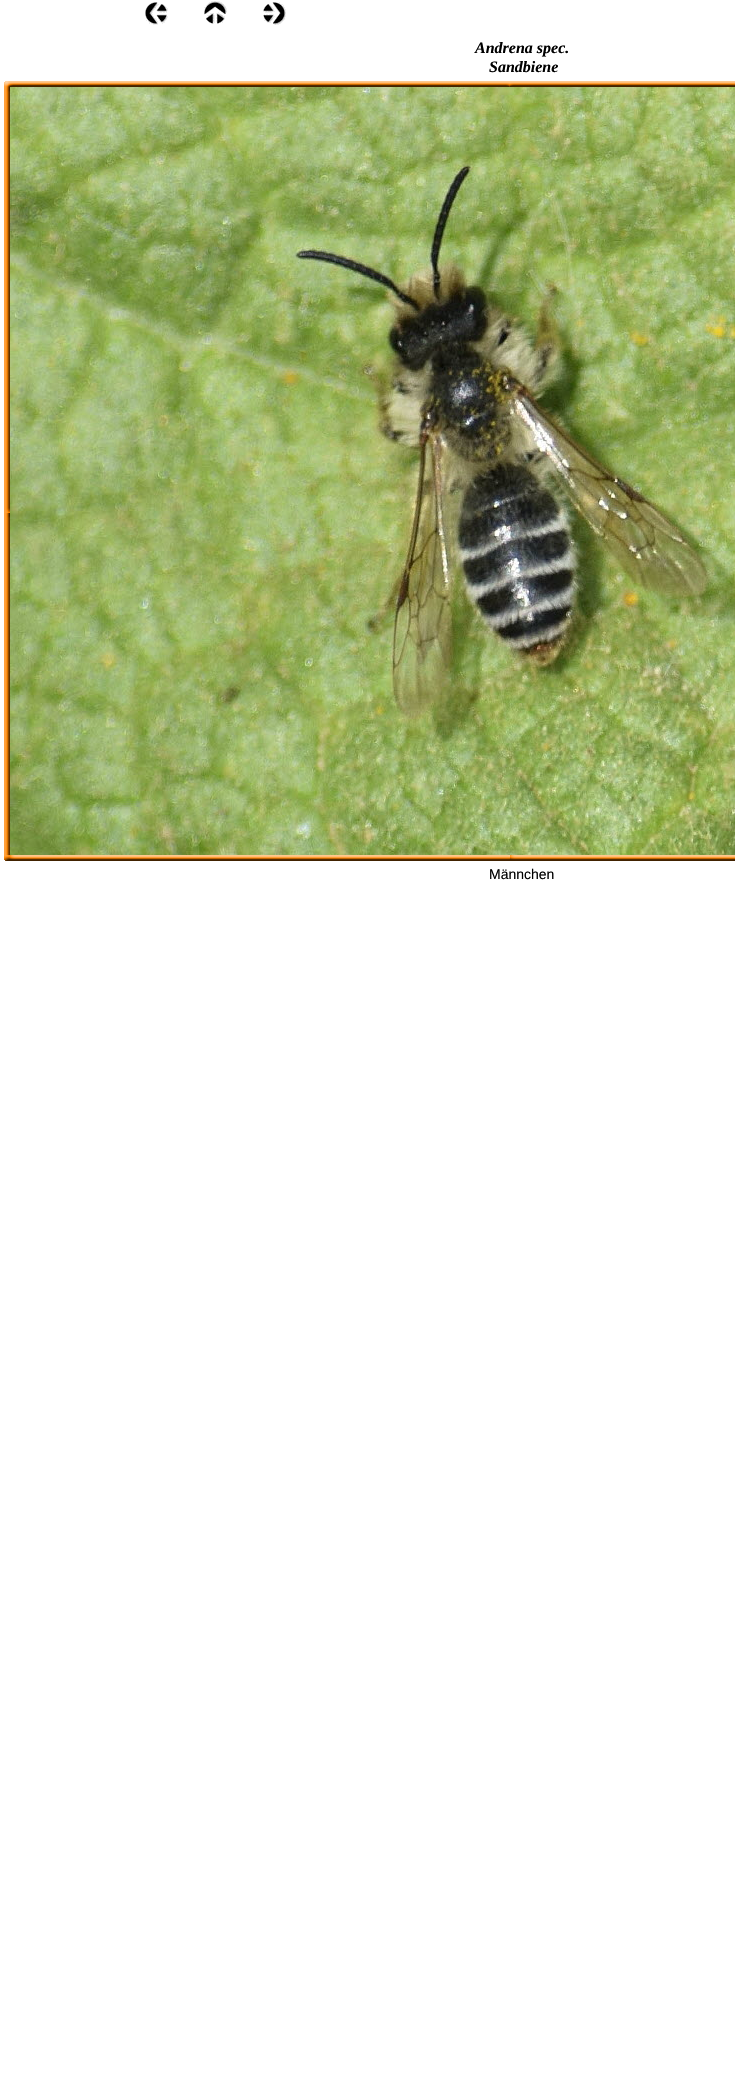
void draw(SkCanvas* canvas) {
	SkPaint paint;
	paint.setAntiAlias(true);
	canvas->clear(0xffffffff);
	canvas->drawImageRect(SkImages::DeferredFromEncodedData(SkData::MakeFromFileName("img1.png")), SkRect::MakeXYWH(145, 2, 23, 23), SkSamplingOptions());
	canvas->drawImageRect(SkImages::DeferredFromEncodedData(SkData::MakeFromFileName("img2.png")), SkRect::MakeXYWH(204, 1, 23, 23), SkSamplingOptions());
	canvas->drawImageRect(SkImages::DeferredFromEncodedData(SkData::MakeFromFileName("img3.png")), SkRect::MakeXYWH(263, 2, 23, 23), SkSamplingOptions());
	SkFont f1(fontMgr->matchFamilyStyle("Liberation Serif", SkFontStyle::BoldItalic()), 16);
	f1.setSubpixel(true);
	paint.setColor(0xff000000);
	canvas->drawString("Andrena spec.", 475, 53, f1, paint);
	canvas->drawString("Sandbiene", 489, 72, f1, paint);
	canvas->drawImageRect(SkImages::DeferredFromEncodedData(SkData::MakeFromFileName("img4.png")), SkRect::MakeXYWH(4, 81, 6, 6), SkSamplingOptions());
	canvas->drawImageRect(SkImages::DeferredFromEncodedData(SkData::MakeFromFileName("img5.png")), SkRect::MakeXYWH(10, 81, 725, 6), SkSamplingOptions());
	canvas->drawImageRect(SkImages::DeferredFromEncodedData(SkData::MakeFromFileName("img6.png")), SkRect::MakeXYWH(4, 87, 6, 768), SkSamplingOptions());
	canvas->drawImageRect(SkImages::DeferredFromEncodedData(SkData::MakeFromFileName("img7.png")), SkRect::MakeXYWH(10, 87, 725, 768), SkSamplingOptions());
	canvas->drawImageRect(SkImages::DeferredFromEncodedData(SkData::MakeFromFileName("img8.png")), SkRect::MakeXYWH(4, 855, 6, 6), SkSamplingOptions());
	canvas->drawImageRect(SkImages::DeferredFromEncodedData(SkData::MakeFromFileName("img9.png")), SkRect::MakeXYWH(10, 855, 725, 6), SkSamplingOptions());
	SkFont f2(fontMgr->matchFamilyStyle("Liberation Sans", SkFontStyle::Normal()), 14);
	f2.setSubpixel(true);
	canvas->drawString("Männchen", 489, 879, f2, paint);
}
